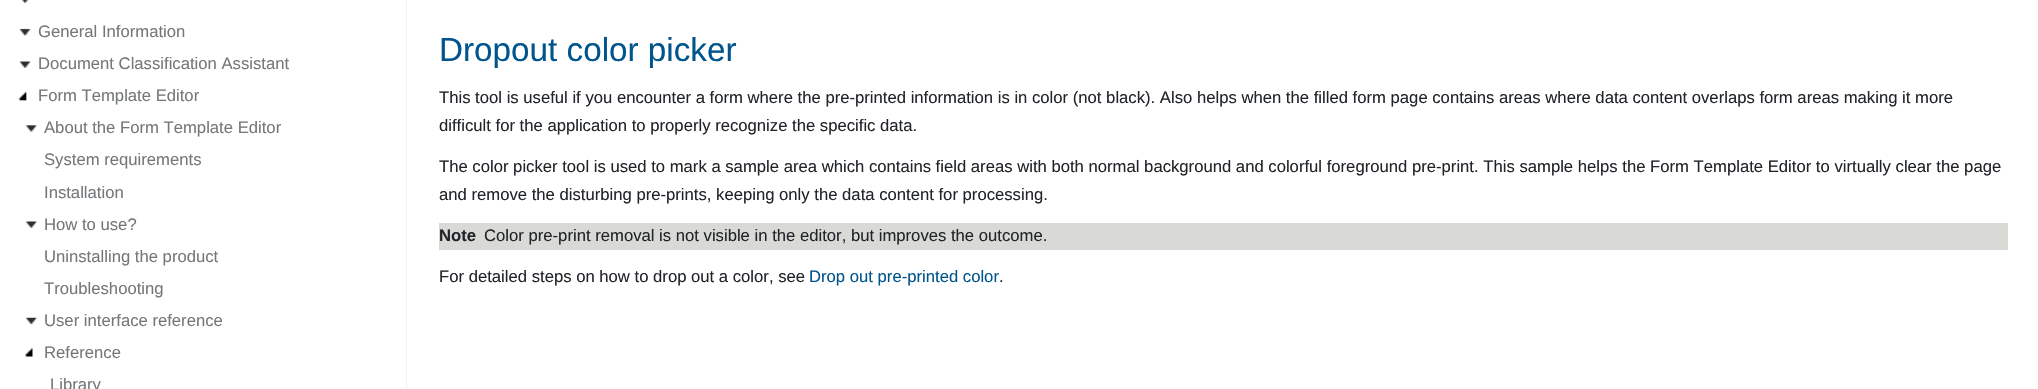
void draw(SkCanvas* canvas) {
	SkPaint paint;
	paint.setAntiAlias(true);
	canvas->clear(0xffffffff);
	paint.setColor(0xfff3f3f3);
	canvas->drawRect(SkRect::MakeXYWH(406, 0, 1, 389), paint);
	canvas->drawImageRect(SkImages::DeferredFromEncodedData(SkData::MakeFromFileName("img1.png")), SkRect::MakeXYWH(21, 0, 8, 3), SkSamplingOptions());
	canvas->drawImageRect(SkImages::DeferredFromEncodedData(SkData::MakeFromFileName("img2.png")), SkRect::MakeXYWH(19, 28, 12, 8), SkSamplingOptions());
	SkFont f1(fontMgr->matchFamilyStyle("Liberation Sans", SkFontStyle::Normal()), 16.67);
	f1.setSubpixel(true);
	paint.setColor(0xff75787b);
	canvas->drawString("General Information", 38, 37, f1, paint);
	canvas->drawImageRect(SkImages::DeferredFromEncodedData(SkData::MakeFromFileName("img3.png")), SkRect::MakeXYWH(19, 61, 12, 7), SkSamplingOptions());
	canvas->drawString("Document Classification Assistant", 38, 69, f1, paint);
	canvas->drawImageRect(SkImages::DeferredFromEncodedData(SkData::MakeFromFileName("img4.png")), SkRect::MakeXYWH(18, 91, 9, 10), SkSamplingOptions());
	canvas->drawString("Form Template Editor", 38, 101, f1, paint);
	canvas->drawImageRect(SkImages::DeferredFromEncodedData(SkData::MakeFromFileName("img5.png")), SkRect::MakeXYWH(26, 125, 11, 7), SkSamplingOptions());
	canvas->drawString("About the Form Template Editor", 44, 133, f1, paint);
	canvas->drawString("System requirements", 44, 165, f1, paint);
	canvas->drawString("Installation", 44, 198, f1, paint);
	canvas->drawImageRect(SkImages::DeferredFromEncodedData(SkData::MakeFromFileName("img6.png")), SkRect::MakeXYWH(26, 221, 11, 7), SkSamplingOptions());
	canvas->drawString("How to use?", 44, 230, f1, paint);
	canvas->drawString("Uninstalling the product", 44, 262, f1, paint);
	canvas->drawString("Troubleshooting", 44, 294, f1, paint);
	canvas->drawImageRect(SkImages::DeferredFromEncodedData(SkData::MakeFromFileName("img7.png")), SkRect::MakeXYWH(26, 317, 11, 8), SkSamplingOptions());
	canvas->drawString("User interface reference", 44, 326, f1, paint);
	canvas->drawImageRect(SkImages::DeferredFromEncodedData(SkData::MakeFromFileName("img8.png")), SkRect::MakeXYWH(25, 347, 8, 10), SkSamplingOptions());
	canvas->drawString("Reference", 44, 358, f1, paint);
	canvas->drawString("Library", 50, 390, f1, paint);
	SkFont f2(fontMgr->matchFamilyStyle("Liberation Sans", SkFontStyle::Normal()), 33.25);
	f2.setSubpixel(true);
	paint.setColor(0xff00558c);
	canvas->drawString("Dropout color picker", 439, 61, f2, paint);
	paint.setColor(0xff212529);
	canvas->drawString("This tool is useful if you encounter a form where the pre-printed information is in color (not black). Also helps when the filled form page contains areas where data content overlaps form areas making it more", 439, 103, f1, paint);
	canvas->drawString("difficult for the application to properly recognize the specific data.", 439, 131, f1, paint);
	canvas->drawString("The color picker tool is used to mark a sample area which contains field areas with both normal background and colorful foreground pre-print. This sample helps the Form Template Editor to virtually clear the page", 439, 172, f1, paint);
	canvas->drawString("and remove the disturbing pre-prints, keeping only the data content for processing.", 439, 200, f1, paint);
	paint.setColor(0xffd9d9d6);
	canvas->drawRect(SkRect::MakeXYWH(439, 223, 1569, 27), paint);
	SkFont f3(fontMgr->matchFamilyStyle("Liberation Sans", SkFontStyle::Bold()), 16.67);
	f3.setSubpixel(true);
	paint.setColor(0xff212529);
	canvas->drawString("Note", 439, 241, f3, paint);
	canvas->drawString("Color pre-print removal is not visible in the editor, but improves the outcome.", 484, 241, f1, paint);
	canvas->drawString("For detailed steps on how to drop out a color, see", 439, 282, f1, paint);
	paint.setColor(0xff00558c);
	canvas->drawString("Drop out pre-printed color", 809, 282, f1, paint);
	paint.setColor(0xff212529);
	canvas->drawString(".", 999, 282, f1, paint);
}
